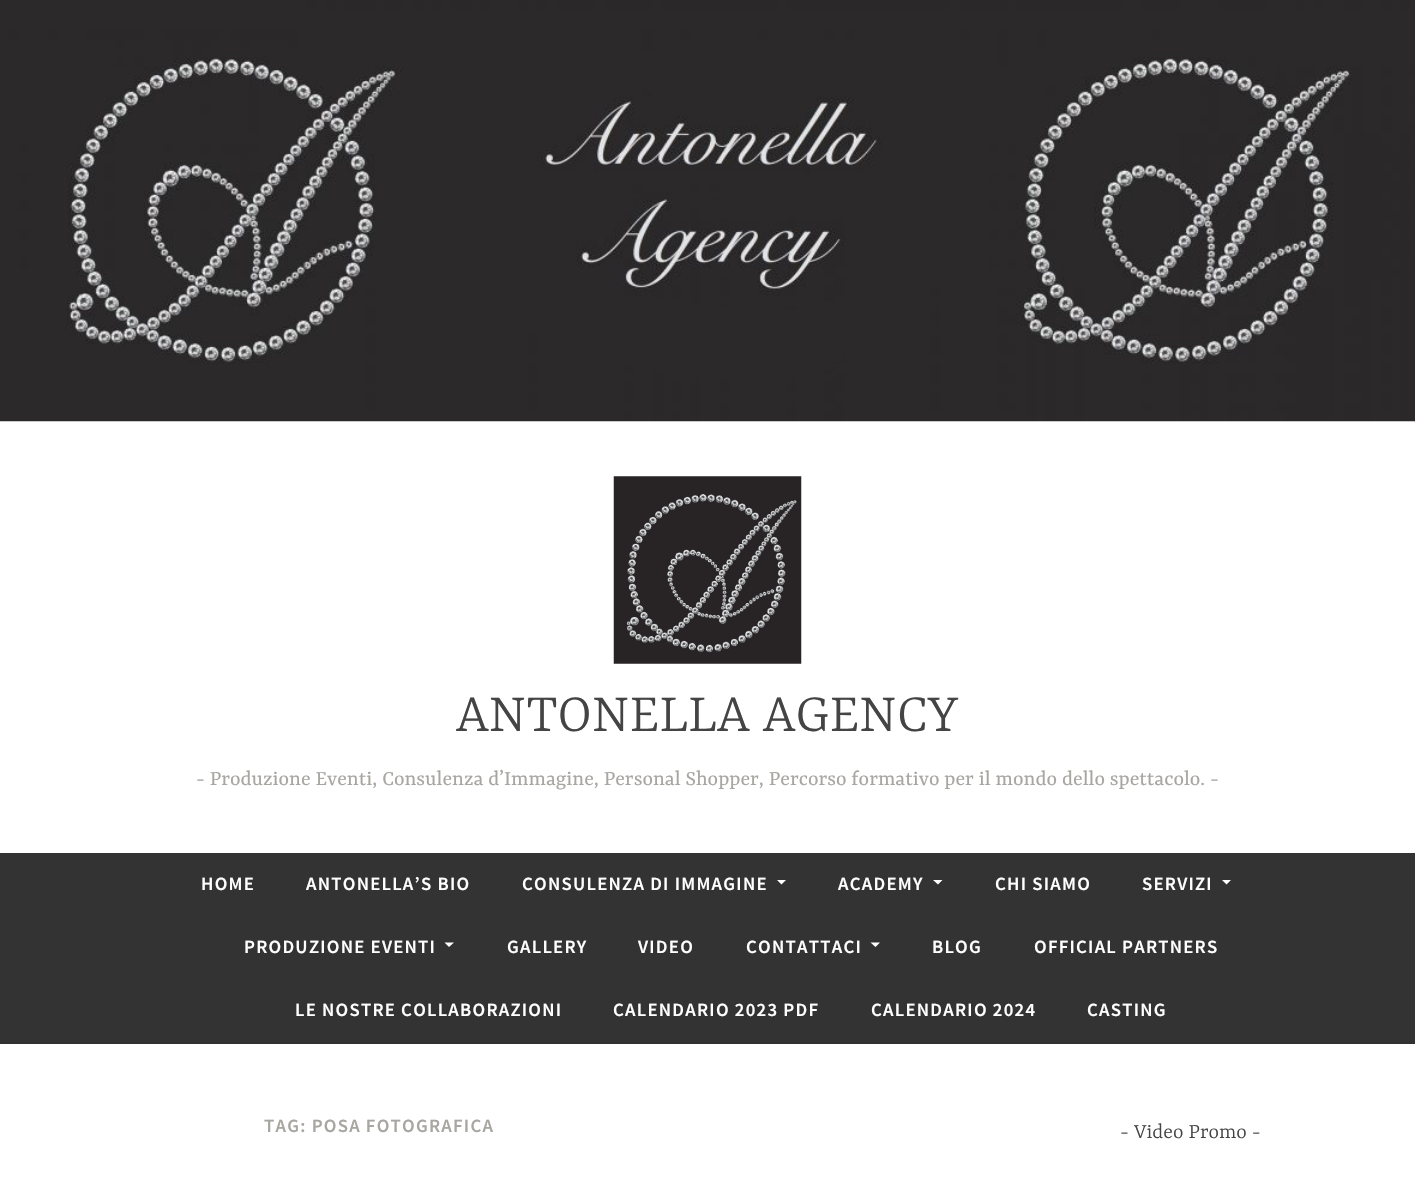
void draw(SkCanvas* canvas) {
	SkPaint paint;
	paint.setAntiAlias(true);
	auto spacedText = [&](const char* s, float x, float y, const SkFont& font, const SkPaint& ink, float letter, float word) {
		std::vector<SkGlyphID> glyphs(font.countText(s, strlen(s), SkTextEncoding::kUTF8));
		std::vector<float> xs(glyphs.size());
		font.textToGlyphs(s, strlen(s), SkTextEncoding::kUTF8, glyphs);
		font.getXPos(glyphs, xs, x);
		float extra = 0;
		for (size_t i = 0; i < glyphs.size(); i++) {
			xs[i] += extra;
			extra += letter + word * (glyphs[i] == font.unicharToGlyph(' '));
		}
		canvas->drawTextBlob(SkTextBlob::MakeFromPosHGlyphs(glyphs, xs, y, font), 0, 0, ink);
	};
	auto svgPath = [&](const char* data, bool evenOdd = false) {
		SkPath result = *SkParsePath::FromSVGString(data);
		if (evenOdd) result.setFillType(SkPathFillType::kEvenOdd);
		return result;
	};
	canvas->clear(0xffffffff);
	canvas->drawImageRect(SkImages::DeferredFromEncodedData(SkData::MakeFromFileName("img1.png")), SkRect::MakeXYWH(0, 0, 1415, 422), SkSamplingOptions());
	canvas->drawImageRect(SkImages::DeferredFromEncodedData(SkData::MakeFromFileName("img2.png")), SkRect::MakeXYWH(613, 476, 189, 188), SkSamplingOptions());
	SkFont f1(fontMgr->matchFamilyStyle("Yrsa", SkFontStyle(300, SkFontStyle::kNormal_Width, SkFontStyle::kUpright_Slant)), 58.75);
	f1.setSubpixel(true);
	paint.setColor(0xff444444);
	canvas->drawString("ANTONELLA AGENCY", 456, 731, f1, paint);
	SkFont f2(fontMgr->matchFamilyStyle("Yrsa", SkFontStyle::Normal()), 22.5);
	f2.setSubpixel(true);
	paint.setColor(0xffa8a6a1);
	canvas->drawString("- Produzione Eventi, Consulenza d’Immagine, Personal Shopper, Percorso formativo per il mondo dello spettacolo. -", 196, 785, f2, paint);
	paint.setColor(0xff333333);
	canvas->drawRect(SkRect::MakeXYWH(0, 853, 1415, 188), paint);
	paint.setColor(0xff313131);
	canvas->drawRect(SkRect::MakeXYWH(0, 1041, 1415, 3), paint);
	SkFont f3(fontMgr->matchFamilyStyle("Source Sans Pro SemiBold", SkFontStyle(600, SkFontStyle::kNormal_Width, SkFontStyle::kUpright_Slant)), 18.75);
	f3.setSubpixel(true);
	paint.setColor(0xffffffff);
	spacedText("HOME", 201, 890, f3, paint, 1.25, 0);
	spacedText("ANTONELLA’S BIO", 306, 890, f3, paint, 1.25, 0);
	spacedText("CONSULENZA DI IMMAGINE", 522, 890, f3, paint, 1.25, 0);
	canvas->drawPath(svgPath("M777 880H786L781.5 884.5Z"), paint);
	spacedText("ACADEMY", 838, 890, f3, paint, 1.25, 0);
	canvas->drawPath(svgPath("M933 880H942.5L938 884.5Z"), paint);
	spacedText("CHI SIAMO", 995, 890, f3, paint, 1.25, 0);
	spacedText("SERVIZI", 1142, 890, f3, paint, 1.25, 0);
	canvas->drawPath(svgPath("M1222 880H1231L1226.5 884.5Z"), paint);
	spacedText("PRODUZIONE EVENTI", 244, 953, f3, paint, 1.25, 0);
	canvas->drawPath(svgPath("M444.5 942.5H454L449 947Z"), paint);
	spacedText("GALLERY", 507, 953, f3, paint, 1.25, 0);
	spacedText("VIDEO", 638, 953, f3, paint, 1.25, 0);
	spacedText("CONTATTACI", 746, 953, f3, paint, 1.25, 0);
	canvas->drawPath(svgPath("M870.5 942.5H880L875.5 947Z"), paint);
	spacedText("BLOG", 932, 953, f3, paint, 1.25, 0);
	spacedText("OFFICIAL PARTNERS", 1034, 953, f3, paint, 1.25, 0);
	spacedText("LE NOSTRE COLLABORAZIONI", 295, 1016, f3, paint, 1.25, 0);
	spacedText("CALENDARIO 2023 PDF", 613, 1016, f3, paint, 1.25, 0);
	spacedText("CALENDARIO 2024", 871, 1016, f3, paint, 1.25, 0);
	spacedText("CASTING", 1087, 1016, f3, paint, 1.25, 0);
	paint.setColor(0xffa8a6a1);
	spacedText("TAG: POSA FOTOGRAFICA", 264, 1132, f3, paint, 1.25, 0);
	SkFont f4(fontMgr->matchFamilyStyle("Yrsa", SkFontStyle(300, SkFontStyle::kNormal_Width, SkFontStyle::kUpright_Slant)), 22.5);
	f4.setSubpixel(true);
	paint.setColor(0xff444444);
	canvas->drawString("- Video Promo -", 1120, 1138, f4, paint);
}
